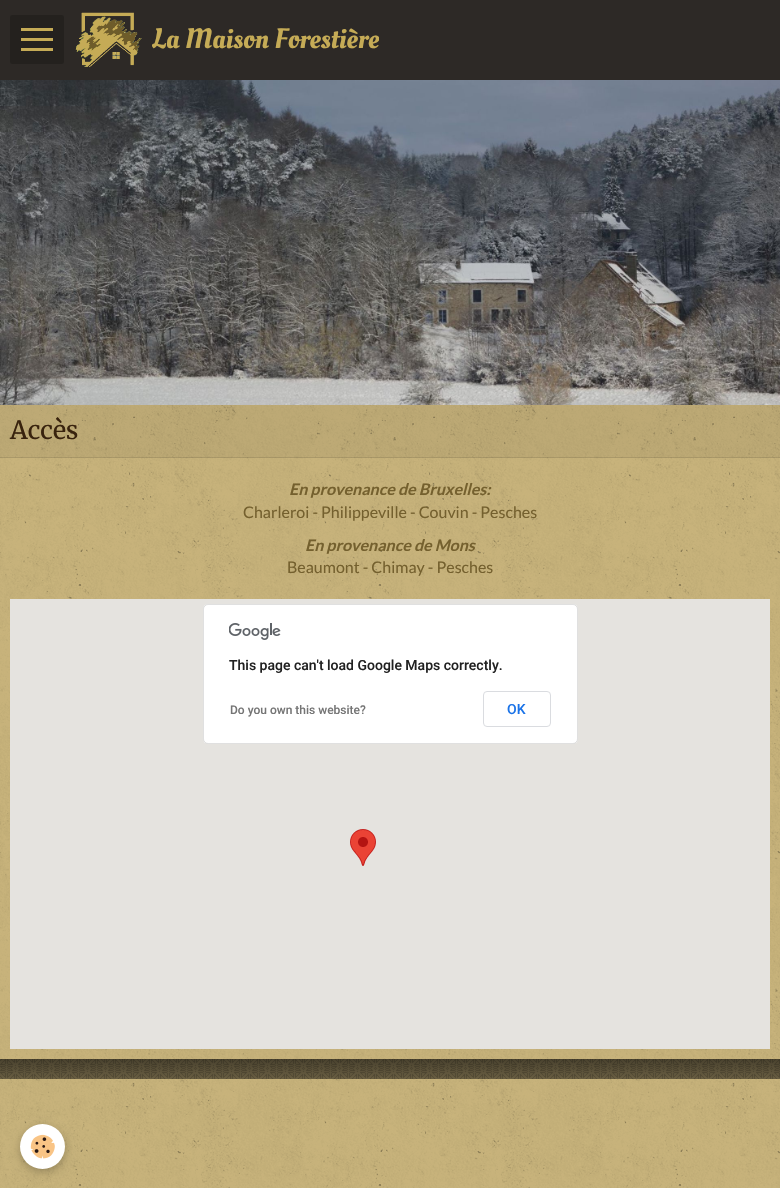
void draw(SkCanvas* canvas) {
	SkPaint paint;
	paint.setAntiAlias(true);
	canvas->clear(0xffcbb67d);
	canvas->drawImageRect(SkImages::DeferredFromEncodedData(SkData::MakeFromFileName("img1.png")), SkRect::MakeXYWH(0, 405, 780, 783), SkSamplingOptions());
	paint.setColor(0xff2d2926);
	canvas->drawRect(SkRect::MakeXYWH(0, 0, 780, 80), paint);
	paint.setColor(0xff24211e);
	canvas->drawRoundRect(SkRect::MakeXYWH(10, 15, 54, 49), 2, 2, paint);
	paint.setColor(0xffc5ab56);
	canvas->drawRect(SkRect::MakeXYWH(21, 38, 32, 3), paint);
	canvas->drawRect(SkRect::MakeXYWH(21, 28, 32, 3), paint);
	canvas->drawRect(SkRect::MakeXYWH(21, 48, 32, 3), paint);
	canvas->drawImageRect(SkImages::DeferredFromEncodedData(SkData::MakeFromFileName("img2.png")), SkRect::MakeXYWH(75, 12, 67, 56), SkSamplingOptions());
	canvas->save();
	canvas->clipRect(SkRect::MakeXYWH(152, 23, 227, 34));
	SkFont f1(fontMgr->matchFamilyStyle("Oleo Script", SkFontStyle::Normal()), 28);
	f1.setSubpixel(true);
	canvas->drawString("La Maison Forestière", 152, 48, f1, paint);
	canvas->restore();
	canvas->drawImageRect(SkImages::DeferredFromEncodedData(SkData::MakeFromFileName("img3.png")), SkRect::MakeXYWH(0, 80, 780, 325), SkSamplingOptions());
	paint.setColor(0x0d000000);
	canvas->drawRect(SkRect::MakeXYWH(0, 405, 780, 53), paint);
	paint.setColor(0x1a000000);
	canvas->drawRect(SkRect::MakeXYWH(0, 457, 780, 1), paint);
	SkFont f2(fontMgr->matchFamilyStyle("Merriweather", SkFontStyle::Normal()), 25);
	f2.setSubpixel(true);
	paint.setColor(0xff39230e);
	canvas->drawString("Accès", 10, 439, f2, paint);
	SkFont f3(fontMgr->matchFamilyStyle("Lato", SkFontStyle::BoldItalic()), 16);
	f3.setSubpixel(true);
	paint.setColor(0xff74602e);
	canvas->drawString("En provenance de Bruxelles:", 289, 495, f3, paint);
	SkFont f4(fontMgr->matchFamilyStyle("Lato", SkFontStyle::Normal()), 16);
	f4.setSubpixel(true);
	canvas->drawString("Charleroi - Philippeville - Couvin - Pesches", 243, 518, f4, paint);
	canvas->drawString("En provenance de Mons", 305, 551, f3, paint);
	canvas->drawString("Beaumont - Chimay - Pesches", 287, 573, f4, paint);
	paint.setColor(0xffe5e3df);
	canvas->drawRect(SkRect::MakeXYWH(10, 599, 760, 450), paint);
	canvas->drawImageRect(SkImages::DeferredFromEncodedData(SkData::MakeFromFileName("img4.png")), SkRect::MakeXYWH(350, 829, 26, 37), SkSamplingOptions());
	paint.setColor(0xffffffff);
	canvas->drawRoundRect(SkRect::MakeXYWH(203, 604, 375, 140), 5, 5, paint);
	paint.setStroke(true);
	paint.setStrokeWidth(1);
	paint.setColor(0x1f000000);
	canvas->drawRoundRect(SkRect::MakeXYWH(203.5, 604.5, 374, 139), 4.5, 4.5, paint);
	canvas->drawImageRect(SkImages::DeferredFromEncodedData(SkData::MakeFromFileName("img5.png")), SkRect::MakeXYWH(229, 623, 52, 17), SkSamplingOptions());
	SkFont f5(fontMgr->matchFamilyStyle("Roboto", SkFontStyle(500, SkFontStyle::kNormal_Width, SkFontStyle::kUpright_Slant)), 14);
	f5.setSubpixel(true);
	paint.setStroke(false);
	paint.setColor(0xff212121);
	canvas->drawString("This page can't load Google Maps correctly.", 229, 670, f5, paint);
	SkFont f6(fontMgr->matchFamilyStyle("Roboto", SkFontStyle(500, SkFontStyle::kNormal_Width, SkFontStyle::kUpright_Slant)), 12);
	f6.setSubpixel(true);
	paint.setColor(0xff757575);
	canvas->drawString("Do you own this website?", 230, 714, f6, paint);
	paint.setStroke(true);
	paint.setColor(0xffdadce0);
	canvas->drawRoundRect(SkRect::MakeXYWH(483.5, 691.5, 67, 35), 3.5, 3.5, paint);
	paint.setStroke(false);
	paint.setColor(0xff1a73e8);
	canvas->drawString("OK", 507, 714, f5, paint);
	paint.setColor(0xff695e42);
	canvas->drawRect(SkRect::MakeXYWH(0, 1059, 780, 20), paint);
	canvas->drawImageRect(SkImages::DeferredFromEncodedData(SkData::MakeFromFileName("img6.png")), SkRect::MakeXYWH(0, 1059, 780, 20), SkSamplingOptions());
	{
		const SkColor colors[] = {0x4d000000, 0x00000000};
		const float stops[] = {0, 1};
		const SkPoint ends[] = {{390, 1059}, {390, 1079}};
		paint.setShader(SkGradientShader::MakeLinear(ends, colors, stops, 2, SkTileMode::kClamp));
		paint.setAlpha(255);
	}
	canvas->drawRect(SkRect::MakeXYWH(0, 1059, 780, 18), paint);
	paint.setShader(nullptr);
	paint.setColor(0x3d000000);
	paint.setMaskFilter(SkMaskFilter::MakeBlur(kNormal_SkBlurStyle, 5));
	canvas->drawRoundRect(SkRect::MakeXYWH(20, 1127, 45, 45), 22.5, 22.5, paint);
	paint.setMaskFilter(nullptr);
	paint.setColor(0xffffffff);
	canvas->drawCircle(42.5, 1146.5, 22.5, paint);
	canvas->drawImageRect(SkImages::DeferredFromEncodedData(SkData::MakeFromFileName("img7.png")), SkRect::MakeXYWH(30, 1134, 25, 25), SkSamplingOptions());
}
